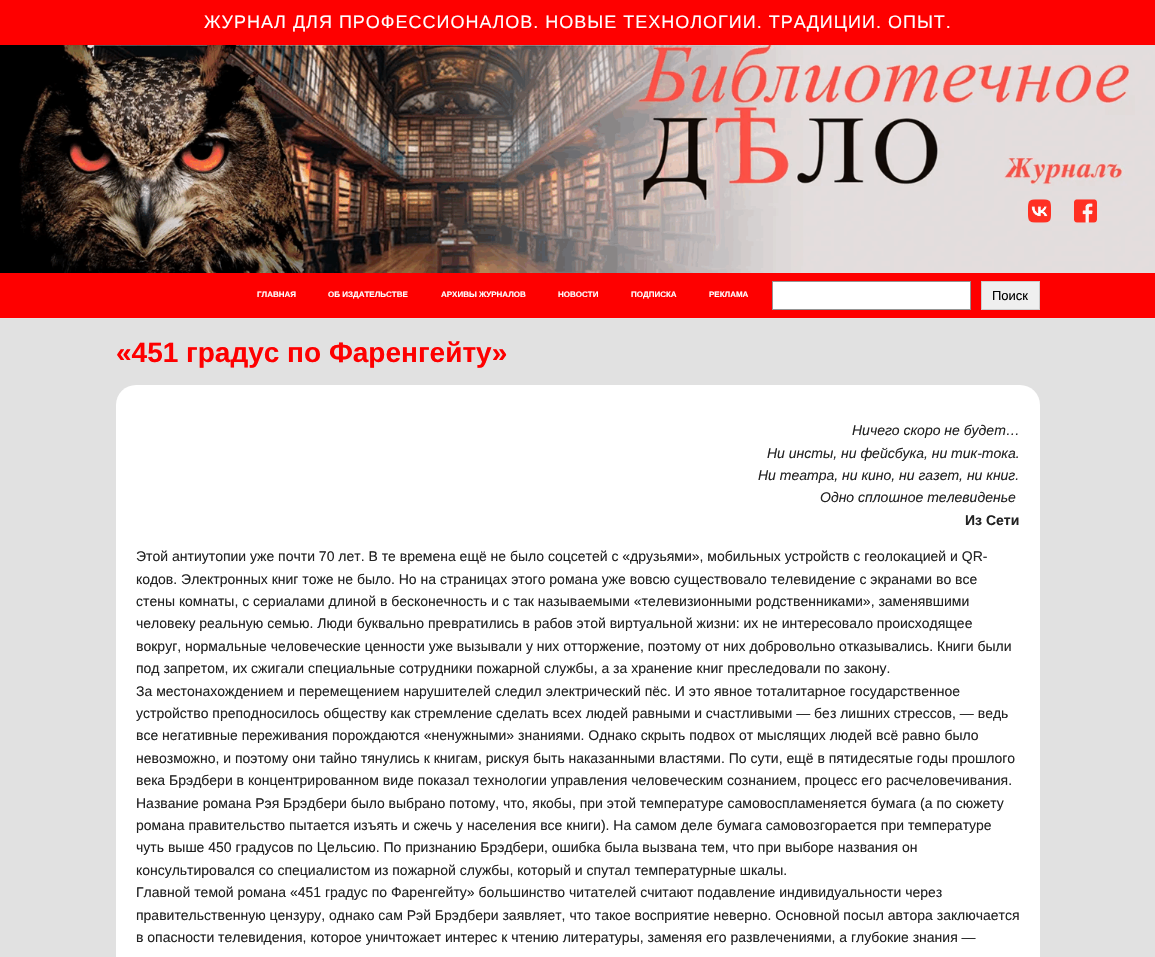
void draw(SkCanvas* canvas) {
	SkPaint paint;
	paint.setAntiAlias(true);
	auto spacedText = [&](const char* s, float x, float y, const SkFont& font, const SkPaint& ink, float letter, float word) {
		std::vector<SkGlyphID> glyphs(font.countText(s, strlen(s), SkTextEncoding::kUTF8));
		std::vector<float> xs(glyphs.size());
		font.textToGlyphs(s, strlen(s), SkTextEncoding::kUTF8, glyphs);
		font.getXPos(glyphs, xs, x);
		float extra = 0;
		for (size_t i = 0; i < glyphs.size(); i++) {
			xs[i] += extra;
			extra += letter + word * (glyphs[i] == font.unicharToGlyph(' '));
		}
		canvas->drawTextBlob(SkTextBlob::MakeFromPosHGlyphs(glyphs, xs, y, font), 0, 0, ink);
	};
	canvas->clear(0xffe1e1e1);
	paint.setColor(0xffe5e5e5);
	canvas->drawRect(SkRect::MakeXYWH(0, 318, 1155, 1), paint);
	paint.setColor(0xfffe0000);
	canvas->drawRect(SkRect::MakeXYWH(0, 0, 1155, 45), paint);
	SkFont f1(fontMgr->matchFamilyStyle("Liberation Sans", SkFontStyle::Normal()), 18);
	f1.setSubpixel(true);
	paint.setColor(0xffffffff);
	spacedText("ЖУРНАЛ ДЛЯ ПРОФЕССИОНАЛОВ. НОВЫЕ ТЕХНОЛОГИИ. ТРАДИЦИИ. ОПЫТ.", 204, 28, f1, paint, 1, 0);
	canvas->drawImageRect(SkImages::DeferredFromEncodedData(SkData::MakeFromFileName("img1.png")), SkRect::MakeXYWH(0, 45, 1155, 228), SkSamplingOptions());
	canvas->drawImageRect(SkImages::DeferredFromEncodedData(SkData::MakeFromFileName("img2.png")), SkRect::MakeXYWH(1028, 199, 23, 24), SkSamplingOptions());
	canvas->drawImageRect(SkImages::DeferredFromEncodedData(SkData::MakeFromFileName("img3.png")), SkRect::MakeXYWH(1074, 199, 23, 24), SkSamplingOptions());
	paint.setColor(0xfffe0000);
	canvas->drawRect(SkRect::MakeXYWH(0, 273, 1155, 45), paint);
	SkFont f2(fontMgr->matchFamilyStyle("Liberation Sans", SkFontStyle::Bold()), 8);
	f2.setSubpixel(true);
	paint.setColor(0xffffffff);
	canvas->drawString("ГЛАВНАЯ", 257, 297, f2, paint);
	canvas->drawString("ОБ ИЗДАТЕЛЬСТВЕ", 328, 297, f2, paint);
	canvas->drawString("АРХИВЫ ЖУРНАЛОВ", 441, 297, f2, paint);
	canvas->drawString("НОВОСТИ", 558, 297, f2, paint);
	canvas->drawString("ПОДПИСКА", 631, 297, f2, paint);
	canvas->drawString("РЕКЛАМА", 709, 297, f2, paint);
	canvas->drawRect(SkRect::MakeXYWH(772.5, 281.5, 198, 28), paint);
	paint.setStroke(true);
	paint.setStrokeWidth(1);
	paint.setColor(0xff949494);
	canvas->drawRect(SkRect::MakeXYWH(772.5, 281.5, 198, 28), paint);
	paint.setStroke(false);
	paint.setColor(0xffefefef);
	canvas->drawRect(SkRect::MakeXYWH(981.5, 281.5, 58, 28), paint);
	paint.setStroke(true);
	paint.setColor(0xffcccccc);
	canvas->drawRect(SkRect::MakeXYWH(981.5, 281.5, 58, 28), paint);
	SkFont f3(fontMgr->matchFamilyStyle("Liberation Sans", SkFontStyle::Normal()), 13);
	f3.setSubpixel(true);
	paint.setStroke(false);
	paint.setColor(0xff000000);
	canvas->drawString("Поиск", 992, 300, f3, paint);
	SkFont f4(fontMgr->matchFamilyStyle("Liberation Sans", SkFontStyle::Bold()), 28);
	f4.setSubpixel(true);
	paint.setColor(0xfffe0000);
	canvas->drawString("«451 градус по Фаренгейту»", 116, 362, f4, paint);
	paint.setColor(0xffffffff);
	canvas->drawRoundRect(SkRect::MakeXYWH(116, 385, 924, 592), 20, 20, paint);
	SkFont f5(fontMgr->matchFamilyStyle("Liberation Sans", SkFontStyle::Italic()), 14);
	f5.setSubpixel(true);
	paint.setColor(0xff222222);
	canvas->drawString("Ничего скоро не будет…", 852, 435, f5, paint);
	canvas->drawString("Ни инсты, ни фейсбука, ни тик-тока.", 767, 458, f5, paint);
	canvas->drawString("Ни театра, ни кино, ни газет, ни книг.", 758, 480, f5, paint);
	canvas->drawString("Одно сплошное телевиденье", 820, 502, f5, paint);
	SkFont f6(fontMgr->matchFamilyStyle("Liberation Sans", SkFontStyle::Bold()), 14);
	f6.setSubpixel(true);
	canvas->drawString("Из Сети", 965, 525, f6, paint);
	SkFont f7(fontMgr->matchFamilyStyle("Liberation Sans", SkFontStyle::Normal()), 14);
	f7.setSubpixel(true);
	canvas->drawString("Этой антиутопии уже почти 70 лет. В те времена ещё не было соцсетей с «друзьями», мобильных устройств с геолокацией и QR-", 136, 561, f7, paint);
	canvas->drawString("кодов. Электронных книг тоже не было. Но на страницах этого романа уже вовсю существовало телевидение с экранами во все", 136, 584, f7, paint);
	canvas->drawString("стены комнаты, с сериалами длиной в бесконечность и с так называемыми «телевизионными родственниками», заменявшими", 136, 606, f7, paint);
	canvas->drawString("человеку реальную семью. Люди буквально превратились в рабов этой виртуальной жизни: их не интересовало происходящее", 136, 628, f7, paint);
	canvas->drawString("вокруг, нормальные человеческие ценности уже вызывали у них отторжение, поэтому от них добровольно отказывались. Книги были", 136, 651, f7, paint);
	canvas->drawString("под запретом, их сжигали специальные сотрудники пожарной службы, а за хранение книг преследовали по закону.", 136, 673, f7, paint);
	canvas->drawString("За местонахождением и перемещением нарушителей следил электрический пёс. И это явное тоталитарное государственное", 136, 696, f7, paint);
	canvas->drawString("устройство преподносилось обществу как стремление сделать всех людей равными и счастливыми — без лишних стрессов, — ведь", 136, 718, f7, paint);
	canvas->drawString("все негативные переживания порождаются «ненужными» знаниями. Однако скрыть подвох от мыслящих людей всё равно было", 136, 740, f7, paint);
	canvas->drawString("невозможно, и поэтому они тайно тянулись к книгам, рискуя быть наказанными властями. По сути, ещё в пятидесятые годы прошлого", 136, 763, f7, paint);
	canvas->drawString("века Брэдбери в концентрированном виде показал технологии управления человеческим сознанием, процесс его расчеловечивания.", 136, 785, f7, paint);
	canvas->drawString("Название романа Рэя Брэдбери было выбрано потому, что, якобы, при этой температуре самовоспламеняется бумага (а по сюжету", 136, 808, f7, paint);
	canvas->drawString("романа правительство пытается изъять и сжечь у населения все книги). На самом деле бумага самовозгорается при температуре", 136, 830, f7, paint);
	canvas->drawString("чуть выше 450 градусов по Цельсию. По признанию Брэдбери, ошибка была вызвана тем, что при выборе названия он", 136, 852, f7, paint);
	canvas->drawString("консультировался со специалистом из пожарной службы, который и спутал температурные шкалы.", 136, 875, f7, paint);
	canvas->drawString("Главной темой романа «451 градус по Фаренгейту» большинство читателей считают подавление индивидуальности через", 136, 897, f7, paint);
	canvas->drawString("правительственную цензуру, однако сам Рэй Брэдбери заявляет, что такое восприятие неверно. Основной посыл автора заключается", 136, 920, f7, paint);
	canvas->drawString("в опасности телевидения, которое уничтожает интерес к чтению литературы, заменяя его развлечениями, а глубокие знания —", 136, 942, f7, paint);
}
